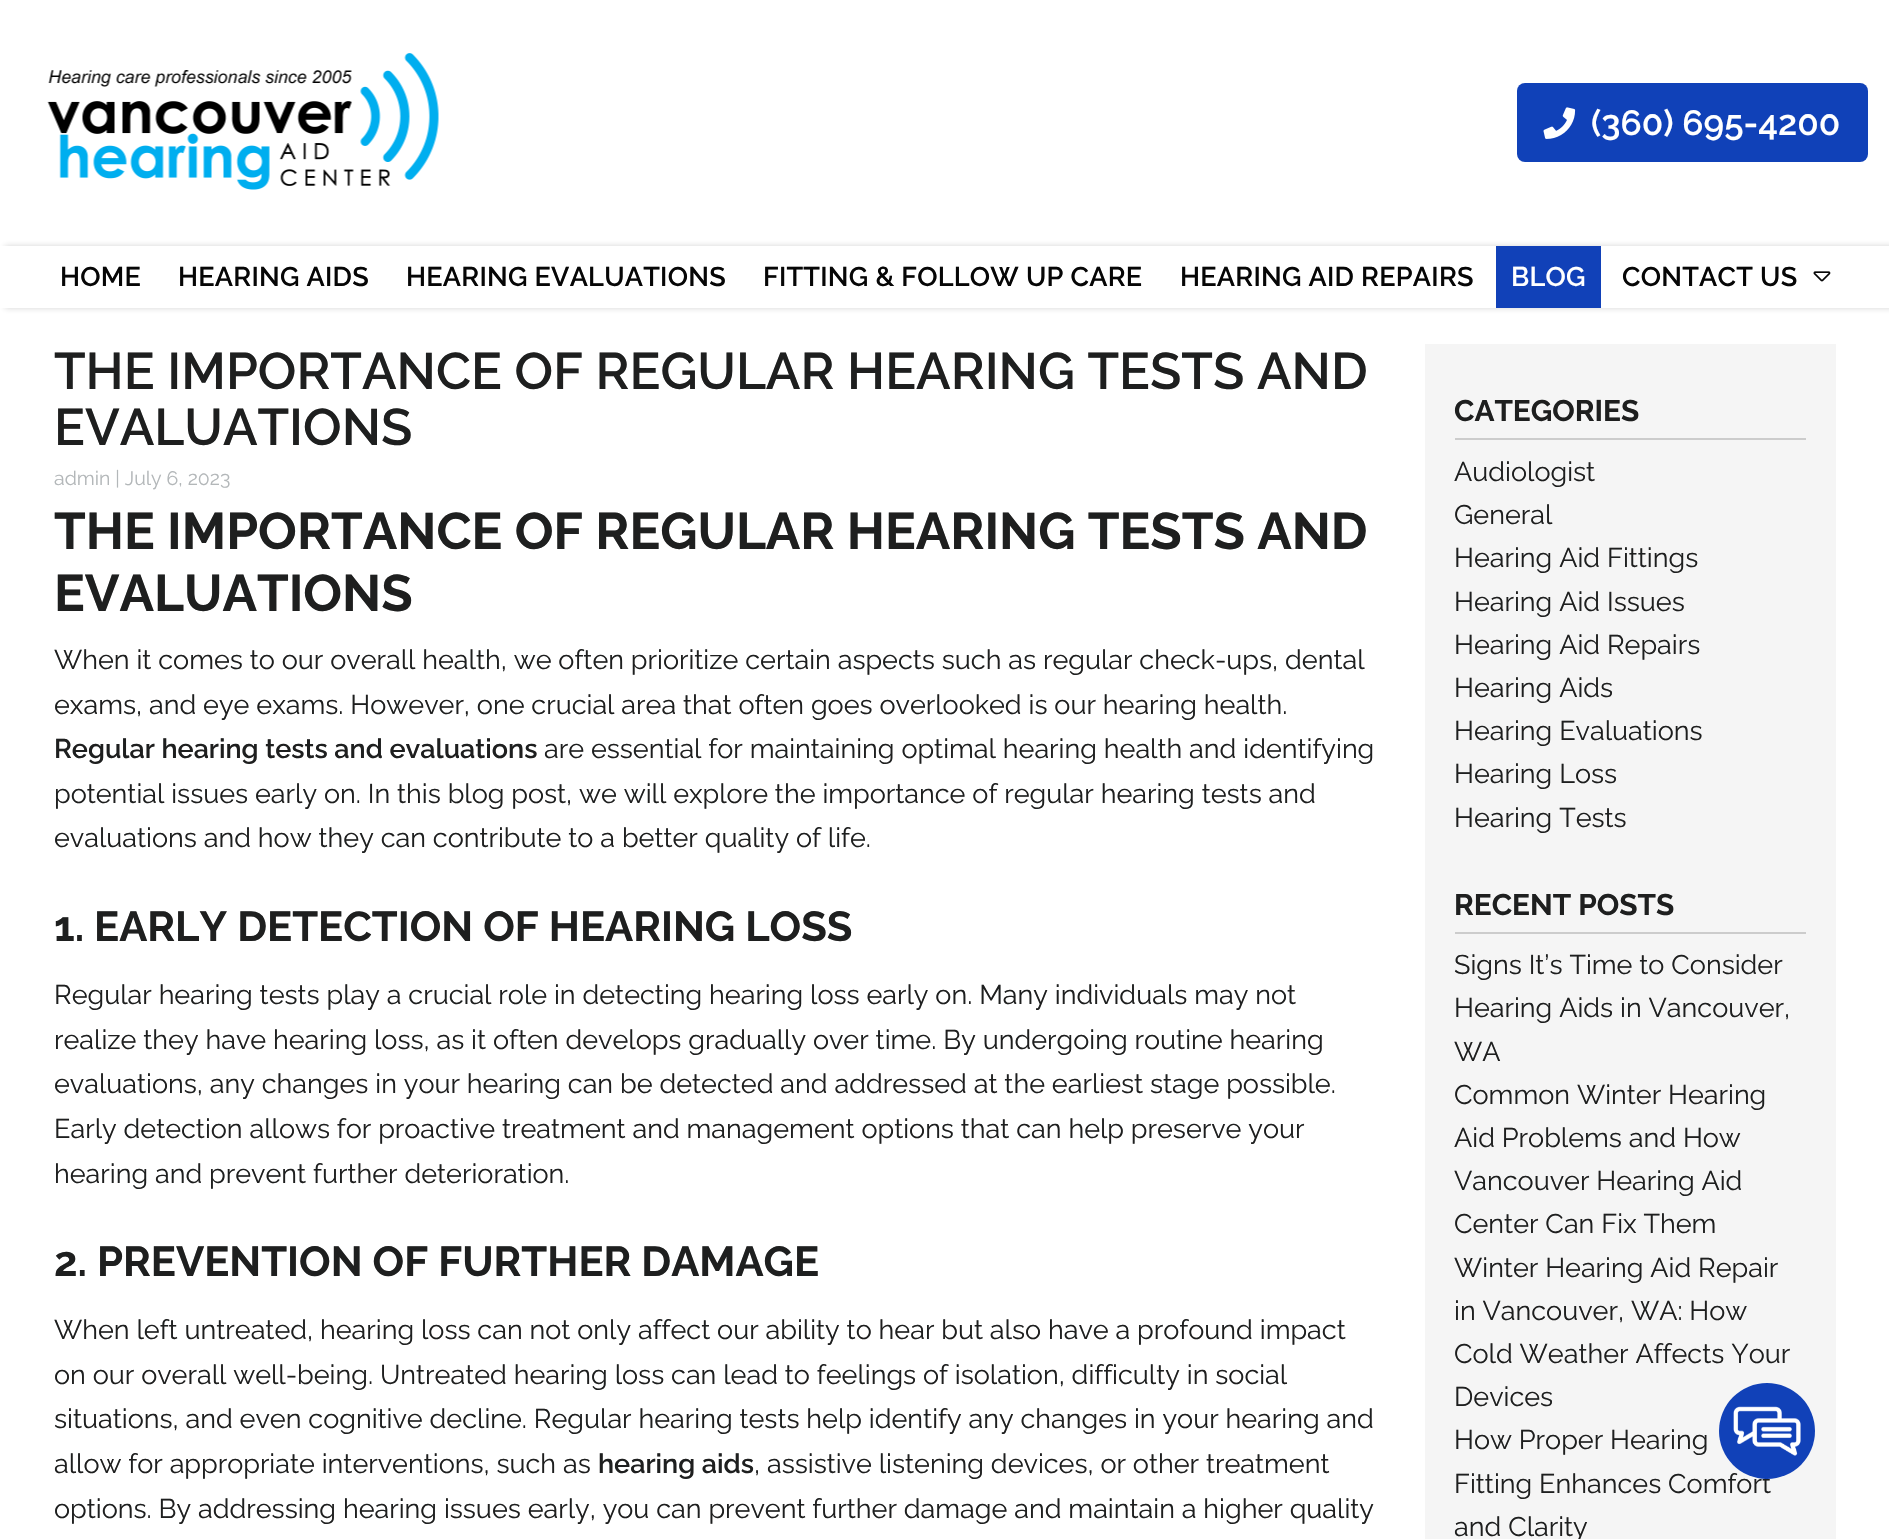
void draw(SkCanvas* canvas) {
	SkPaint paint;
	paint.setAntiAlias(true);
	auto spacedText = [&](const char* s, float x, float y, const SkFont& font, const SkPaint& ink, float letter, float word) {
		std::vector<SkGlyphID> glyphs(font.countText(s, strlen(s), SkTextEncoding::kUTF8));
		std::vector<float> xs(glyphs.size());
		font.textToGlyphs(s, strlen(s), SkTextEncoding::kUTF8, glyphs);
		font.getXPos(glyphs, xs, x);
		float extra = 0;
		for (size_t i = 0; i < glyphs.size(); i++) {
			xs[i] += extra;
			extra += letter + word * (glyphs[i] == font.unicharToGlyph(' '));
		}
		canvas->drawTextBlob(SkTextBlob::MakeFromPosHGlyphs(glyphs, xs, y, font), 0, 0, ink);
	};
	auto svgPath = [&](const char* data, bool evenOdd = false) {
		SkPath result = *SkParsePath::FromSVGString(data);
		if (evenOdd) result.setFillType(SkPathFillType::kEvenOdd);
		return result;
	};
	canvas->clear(0xffffffff);
	canvas->drawImageRect(SkImages::DeferredFromEncodedData(SkData::MakeFromFileName("img1.png")), SkRect::MakeXYWH(47, 53, 392, 137), SkSamplingOptions());
	paint.setColor(0xff1041b8);
	canvas->drawRoundRect(SkRect::MakeXYWH(1517, 83, 351, 79), 8, 8, paint);
	canvas->drawImageRect(SkImages::DeferredFromEncodedData(SkData::MakeFromFileName("img2.png")), SkRect::MakeXYWH(1543, 107, 33, 32), SkSamplingOptions());
	SkFont f1(fontMgr->matchFamilyStyle("Raleway", SkFontStyle(600, SkFontStyle::kNormal_Width, SkFontStyle::kUpright_Slant)), 35);
	f1.setSubpixel(true);
	paint.setColor(0xffffffff);
	canvas->drawString("(360) 695-4200", 1591, 135, f1, paint);
	canvas->save();
	canvas->clipPath(svgPath("M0 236H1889V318H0ZM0 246H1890V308H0Z", true), true);
	paint.setColor(0x33232222);
	paint.setMaskFilter(SkMaskFilter::MakeBlur(kNormal_SkBlurStyle, 3));
	canvas->drawRect(SkRect::MakeXYWH(5, 246, 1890, 62), paint);
	paint.setMaskFilter(nullptr);
	canvas->restore();
	SkFont f2(fontMgr->matchFamilyStyle("Raleway", SkFontStyle(600, SkFontStyle::kNormal_Width, SkFontStyle::kUpright_Slant)), 27);
	f2.setSubpixel(true);
	paint.setColor(0xff060606);
	spacedText("HOME", 60, 286, f2, paint, 0.25, 0);
	spacedText("HEARING AIDS", 178, 286, f2, paint, 0.25, 0);
	spacedText("HEARING EVALUATIONS", 406, 286, f2, paint, 0.25, 0);
	spacedText("FITTING & FOLLOW UP CARE", 763, 286, f2, paint, 0.25, 0);
	spacedText("HEARING AID REPAIRS", 1180, 286, f2, paint, 0.25, 0);
	paint.setColor(0xff1141b8);
	canvas->drawRect(SkRect::MakeXYWH(1496, 246, 105, 62), paint);
	paint.setColor(0xffffffff);
	spacedText("BLOG", 1511, 286, f2, paint, 0.25, 0);
	paint.setColor(0xff060606);
	spacedText("CONTACT US", 1622, 286, f2, paint, 0.25, 0);
	canvas->drawImageRect(SkImages::DeferredFromEncodedData(SkData::MakeFromFileName("img3.png")), SkRect::MakeXYWH(1813, 271, 18, 11), SkSamplingOptions());
	SkFont f3(fontMgr->matchFamilyStyle("Raleway", SkFontStyle(600, SkFontStyle::kNormal_Width, SkFontStyle::kUpright_Slant)), 51.3);
	f3.setSubpixel(true);
	paint.setColor(0xff1e1f1f);
	canvas->drawString("THE IMPORTANCE OF REGULAR HEARING TESTS AND", 54, 389, f3, paint);
	canvas->drawString("EVALUATIONS", 54, 445, f3, paint);
	SkFont f4(fontMgr->matchFamilyStyle("Raleway", SkFontStyle::Normal()), 19.5);
	f4.setSubpixel(true);
	paint.setColor(0xffb3b7b9);
	canvas->drawString("admin | July 6, 2023", 54, 485, f4, paint);
	SkFont f5(fontMgr->matchFamilyStyle("Raleway", SkFontStyle::Bold()), 51.3);
	f5.setSubpixel(true);
	paint.setColor(0xff1e1f1f);
	canvas->drawString("THE IMPORTANCE OF REGULAR HEARING TESTS AND", 54, 549, f5, paint);
	canvas->drawString("EVALUATIONS", 54, 611, f5, paint);
	SkFont f6(fontMgr->matchFamilyStyle("Raleway", SkFontStyle::Normal()), 27);
	f6.setSubpixel(true);
	canvas->drawString("When it comes to our overall health, we often prioritize certain aspects such as regular check-ups, dental", 54, 669, f6, paint);
	canvas->drawString("exams, and eye exams. However, one crucial area that often goes overlooked is our hearing health.", 54, 714, f6, paint);
	canvas->drawString("Regular hearing tests and evaluations", 54, 758, f2, paint);
	canvas->drawString("are essential for maintaining optimal hearing health and identifying", 544, 758, f6, paint);
	canvas->drawString("potential issues early on. In this blog post, we will explore the importance of regular hearing tests and", 54, 803, f6, paint);
	canvas->drawString("evaluations and how they can contribute to a better quality of life.", 54, 847, f6, paint);
	SkFont f7(fontMgr->matchFamilyStyle("Raleway", SkFontStyle::Bold()), 41.8);
	f7.setSubpixel(true);
	canvas->drawString("1. EARLY DETECTION OF HEARING LOSS", 54, 941, f7, paint);
	canvas->drawString("Regular hearing tests play a crucial role in detecting hearing loss early on. Many individuals may not", 54, 1004, f6, paint);
	canvas->drawString("realize they have hearing loss, as it often develops gradually over time. By undergoing routine hearing", 54, 1049, f6, paint);
	canvas->drawString("evaluations, any changes in your hearing can be detected and addressed at the earliest stage possible.", 54, 1093, f6, paint);
	canvas->drawString("Early detection allows for proactive treatment and management options that can help preserve your", 54, 1138, f6, paint);
	canvas->drawString("hearing and prevent further deterioration.", 54, 1183, f6, paint);
	canvas->drawString("2. PREVENTION OF FURTHER DAMAGE", 54, 1276, f7, paint);
	canvas->drawString("When left untreated, hearing loss can not only affect our ability to hear but also have a profound impact", 54, 1339, f6, paint);
	canvas->drawString("on our overall well-being. Untreated hearing loss can lead to feelings of isolation, difficulty in social", 54, 1384, f6, paint);
	canvas->drawString("situations, and even cognitive decline. Regular hearing tests help identify any changes in your hearing and", 54, 1428, f6, paint);
	canvas->drawString("allow for appropriate interventions, such as", 54, 1473, f6, paint);
	canvas->drawString("hearing aids", 598, 1473, f2, paint);
	canvas->drawString(", assistive listening devices, or other treatment", 754, 1473, f6, paint);
	canvas->drawString("options. By addressing hearing issues early, you can prevent further damage and maintain a higher quality", 54, 1518, f6, paint);
	paint.setColor(0xfff5f5f5);
	canvas->drawRect(SkRect::MakeXYWH(1425, 344, 411, 1195), paint);
	paint.setColor(0xffcccccc);
	canvas->drawRect(SkRect::MakeXYWH(1455, 438, 351, 2), paint);
	SkFont f8(fontMgr->matchFamilyStyle("Raleway", SkFontStyle::Bold()), 29.75);
	f8.setSubpixel(true);
	paint.setColor(0xff1e1f1f);
	canvas->drawString("CATEGORIES", 1454, 421, f8, paint);
	canvas->drawString("Audiologist", 1454, 481, f6, paint);
	canvas->drawString("General", 1454, 524, f6, paint);
	canvas->drawString("Hearing Aid Fittings", 1454, 567, f6, paint);
	canvas->drawString("Hearing Aid Issues", 1454, 611, f6, paint);
	canvas->drawString("Hearing Aid Repairs", 1454, 654, f6, paint);
	canvas->drawString("Hearing Aids", 1454, 697, f6, paint);
	canvas->drawString("Hearing Evaluations", 1454, 740, f6, paint);
	canvas->drawString("Hearing Loss", 1454, 783, f6, paint);
	canvas->drawString("Hearing Tests", 1454, 827, f6, paint);
	paint.setColor(0xffcccccc);
	canvas->drawRect(SkRect::MakeXYWH(1455, 932, 351, 2), paint);
	paint.setColor(0xff1e1f1f);
	canvas->drawString("RECENT POSTS", 1454, 915, f8, paint);
	canvas->drawString("Signs It’s Time to Consider", 1454, 974, f6, paint);
	canvas->drawString("Hearing Aids in Vancouver,", 1454, 1017, f6, paint);
	canvas->drawString("WA", 1454, 1061, f6, paint);
	canvas->drawString("Common Winter Hearing", 1454, 1104, f6, paint);
	canvas->drawString("Aid Problems and How", 1454, 1147, f6, paint);
	canvas->drawString("Vancouver Hearing Aid", 1454, 1190, f6, paint);
	canvas->drawString("Center Can Fix Them", 1454, 1233, f6, paint);
	canvas->drawString("Winter Hearing Aid Repair", 1454, 1277, f6, paint);
	canvas->drawString("in Vancouver, WA: How", 1454, 1320, f6, paint);
	canvas->drawString("Cold Weather Affects Your", 1454, 1363, f6, paint);
	canvas->drawString("Devices", 1454, 1406, f6, paint);
	canvas->drawString("How Proper Hearing", 1454, 1449, f6, paint);
	canvas->drawString("Fitting Enhances Comfort", 1454, 1493, f6, paint);
	canvas->drawString("and Clarity", 1454, 1536, f6, paint);
	paint.setColor(0xff1141b8);
	canvas->drawCircle(1767, 1431, 48, paint);
	canvas->drawImageRect(SkImages::DeferredFromEncodedData(SkData::MakeFromFileName("img4.png")), SkRect::MakeXYWH(1733, 1406, 68, 50), SkSamplingOptions());
}
